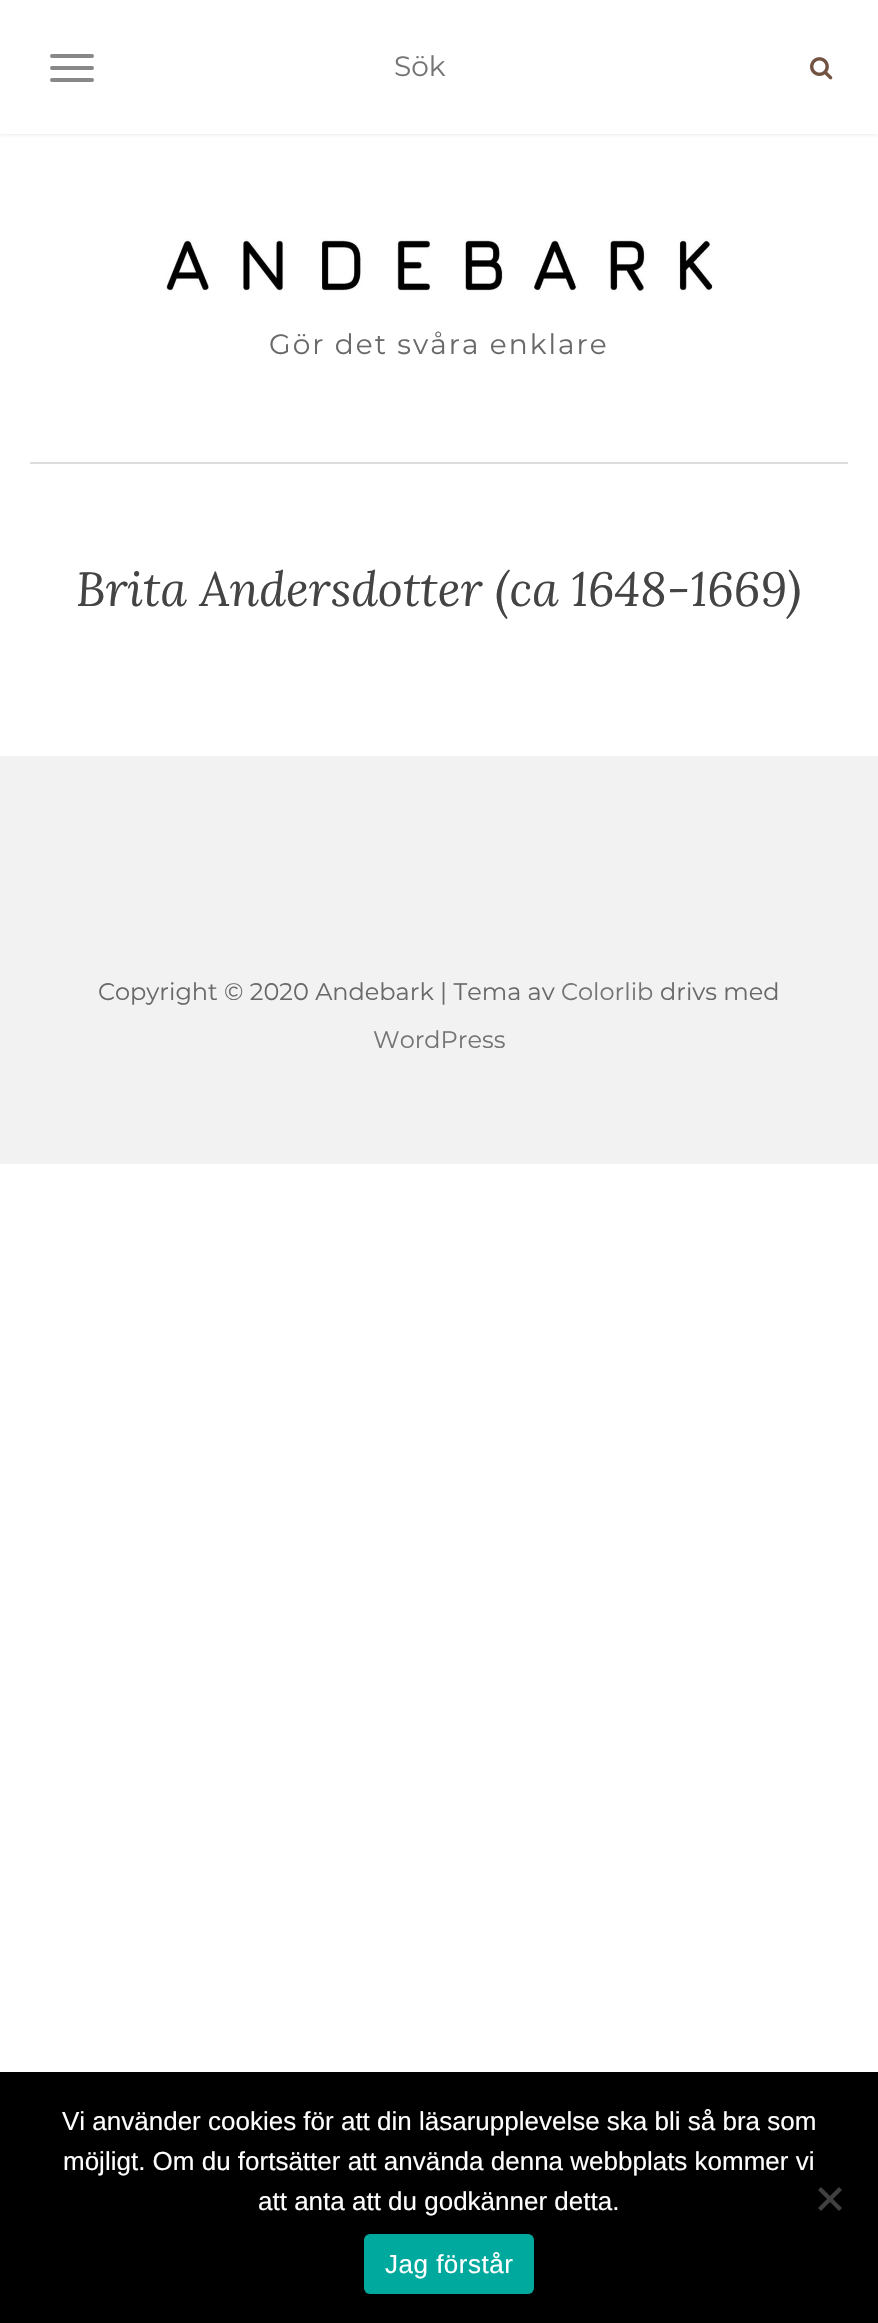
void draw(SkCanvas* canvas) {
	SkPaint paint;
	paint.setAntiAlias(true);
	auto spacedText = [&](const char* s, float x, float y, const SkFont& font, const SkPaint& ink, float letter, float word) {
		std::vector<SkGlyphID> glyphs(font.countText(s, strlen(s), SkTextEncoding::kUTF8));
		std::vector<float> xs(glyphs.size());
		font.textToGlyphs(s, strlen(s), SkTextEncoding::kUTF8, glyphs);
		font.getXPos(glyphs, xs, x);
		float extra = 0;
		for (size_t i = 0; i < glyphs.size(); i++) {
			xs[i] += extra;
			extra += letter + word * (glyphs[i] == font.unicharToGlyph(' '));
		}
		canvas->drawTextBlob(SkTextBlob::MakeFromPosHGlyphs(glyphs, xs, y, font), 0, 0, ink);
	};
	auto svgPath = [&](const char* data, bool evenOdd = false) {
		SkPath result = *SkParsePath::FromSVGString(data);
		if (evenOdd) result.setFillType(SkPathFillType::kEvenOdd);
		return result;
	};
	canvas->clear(0xffffffff);
	canvas->save();
	canvas->clipRect(SkRect::MakeXYWH(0, 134, 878, 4));
	paint.setColor(0xffe3e3e3);
	paint.setMaskFilter(SkMaskFilter::MakeBlur(kNormal_SkBlurStyle, 2));
	canvas->drawRect(SkRect::MakeXYWH(0, 0, 878, 134), paint);
	paint.setMaskFilter(nullptr);
	canvas->restore();
	paint.setColor(0xff888888);
	canvas->drawRoundRect(SkRect::MakeXYWH(50, 54, 44, 4), 2, 2, paint);
	canvas->drawRoundRect(SkRect::MakeXYWH(50, 66, 44, 4), 2, 2, paint);
	canvas->drawRoundRect(SkRect::MakeXYWH(50, 78, 44, 4), 2, 2, paint);
	SkFont f1(fontMgr->matchFamilyStyle("Montserrat", SkFontStyle::Normal()), 28);
	f1.setSubpixel(true);
	paint.setColor(0xff757575);
	canvas->drawString("Sök", 394, 76, f1, paint);
	canvas->drawImageRect(SkImages::DeferredFromEncodedData(SkData::MakeFromFileName("img1.png")), SkRect::MakeXYWH(810, 57, 23, 23), SkSamplingOptions());
	canvas->drawImageRect(SkImages::DeferredFromEncodedData(SkData::MakeFromFileName("img2.png")), SkRect::MakeXYWH(166, 238, 547, 54), SkSamplingOptions());
	paint.setColor(0xff696969);
	spacedText("Gör det svåra enklare", 269, 354, f1, paint, 2, 0);
	paint.setColor(0xffdddddd);
	canvas->drawRect(SkRect::MakeXYWH(30, 462, 818, 2), paint);
	SkFont f2(fontMgr->matchFamilyStyle("Lora", SkFontStyle::Italic()), 48);
	f2.setSubpixel(true);
	paint.setColor(0xff444444);
	canvas->drawString("Brita Andersdotter (ca 1648-1669)", 76, 606, f2, paint);
	paint.setColor(0xfff2f2f2);
	canvas->drawRect(SkRect::MakeXYWH(0, 756, 878, 408), paint);
	SkFont f3(fontMgr->matchFamilyStyle("Montserrat", SkFontStyle::Normal()), 24);
	f3.setSubpixel(true);
	paint.setColor(0xff696969);
	canvas->drawString("Copyright © 2020 Andebark | Tema av", 98, 1000, f3, paint);
	paint.setColor(0xff757575);
	canvas->drawString("Colorlib", 561, 1000, f3, paint);
	paint.setColor(0xff696969);
	canvas->drawString("drivs med", 660, 1000, f3, paint);
	paint.setColor(0xff757575);
	canvas->drawString("WordPress", 373, 1048, f3, paint);
	paint.setColor(0xff000000);
	canvas->drawRect(SkRect::MakeXYWH(0, 2072, 878, 251), paint);
	SkFont f4(fontMgr->matchFamilyStyle("Liberation Sans", SkFontStyle::Normal()), 26);
	f4.setSubpixel(true);
	paint.setColor(0xffffffff);
	canvas->drawString("Vi använder cookies för att din läsarupplevelse ska bli så bra som", 62, 2130, f4, paint);
	canvas->drawString("möjligt. Om du fortsätter att använda denna webbplats kommer vi", 63, 2170, f4, paint);
	canvas->drawString("att anta att du godkänner detta.", 258, 2210, f4, paint);
	paint.setColor(0xff404040);
	canvas->drawPath(svgPath("M839 2187L842 2190L821 2211L818 2208Z"), paint);
	canvas->drawPath(svgPath("M818 2190L821 2187L842 2208L839 2211Z"), paint);
	paint.setColor(0xff00a99d);
	canvas->drawRoundRect(SkRect::MakeXYWH(364, 2234, 170, 60), 6, 6, paint);
	paint.setColor(0xffffffff);
	spacedText("Jag förstår", 385, 2273, f4, paint, 0.5, 0);
}
